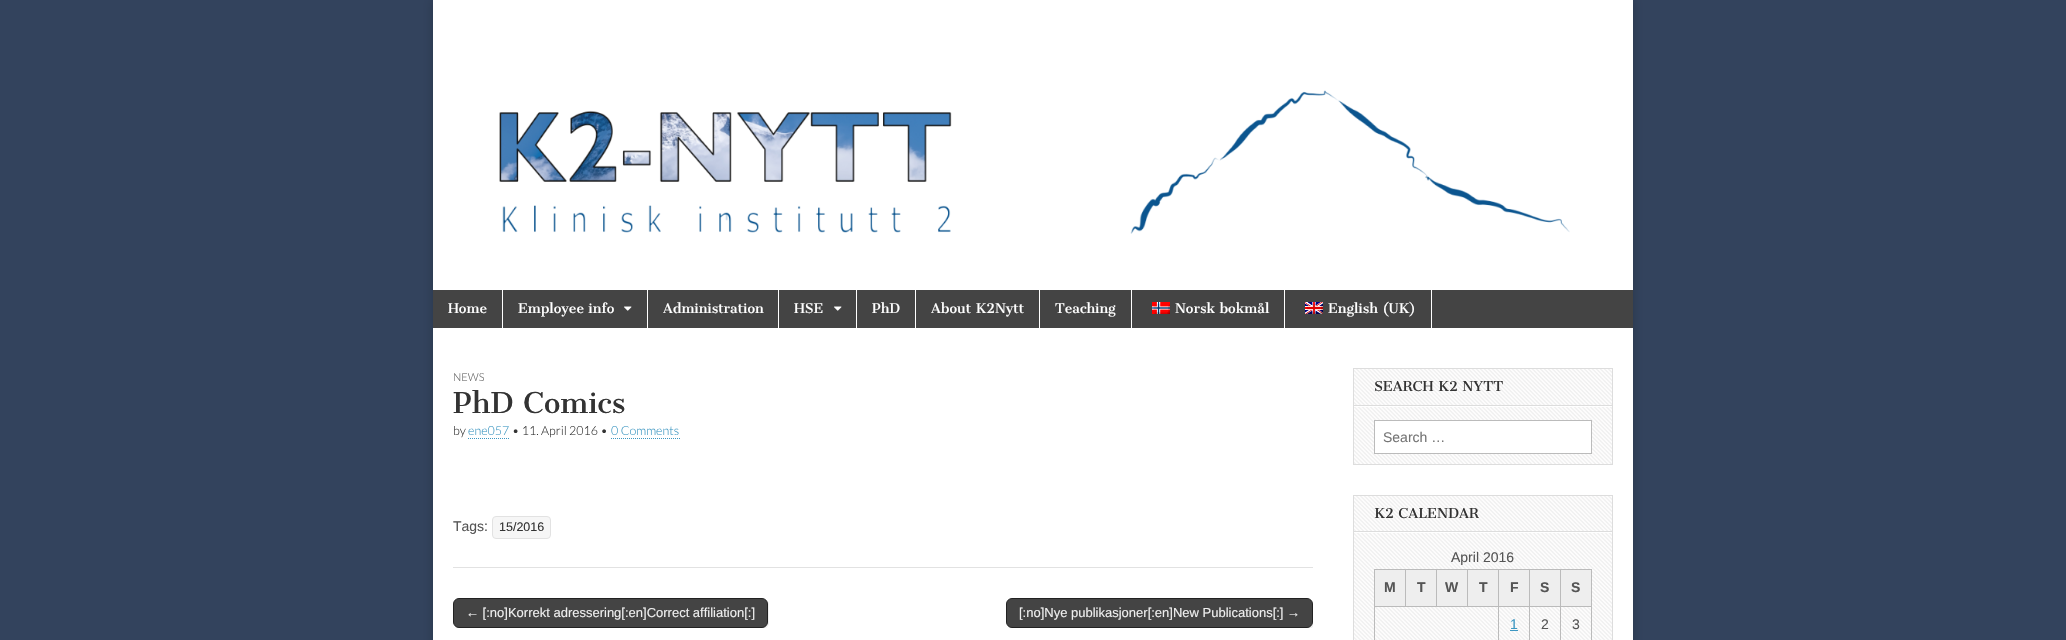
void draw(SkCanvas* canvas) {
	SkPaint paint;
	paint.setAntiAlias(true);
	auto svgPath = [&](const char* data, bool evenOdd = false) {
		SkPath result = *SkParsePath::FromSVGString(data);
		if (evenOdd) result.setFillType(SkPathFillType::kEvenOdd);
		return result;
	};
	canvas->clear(0xff33435d);
	paint.setColor(0x33000000);
	paint.setMaskFilter(SkMaskFilter::MakeBlur(kNormal_SkBlurStyle, 5));
	canvas->drawRect(SkRect::MakeXYWH(433, 0, 1200, 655), paint);
	paint.setMaskFilter(nullptr);
	paint.setColor(0xffffffff);
	canvas->drawRect(SkRect::MakeXYWH(433, 0, 1200, 640), paint);
	canvas->drawImageRect(SkImages::DeferredFromEncodedData(SkData::MakeFromFileName("img1.png")), SkRect::MakeXYWH(499, 90, 1071, 144), SkSamplingOptions());
	paint.setColor(0xff444444);
	canvas->drawRect(SkRect::MakeXYWH(433, 290, 1200, 38), paint);
	paint.setColor(0xffffffff);
	canvas->drawRect(SkRect::MakeXYWH(502, 290, 1, 38), paint);
	SkFont f1(fontMgr->matchFamilyStyle("Cantata One", SkFontStyle::Normal()), 13);
	f1.setSubpixel(true);
	canvas->drawString("Home", 448, 313, f1, paint);
	canvas->drawRect(SkRect::MakeXYWH(647, 290, 1, 38), paint);
	canvas->drawString("Employee info", 518, 313, f1, paint);
	canvas->drawImageRect(SkImages::DeferredFromEncodedData(SkData::MakeFromFileName("img2.png")), SkRect::MakeXYWH(624, 306, 8, 5), SkSamplingOptions());
	canvas->drawRect(SkRect::MakeXYWH(778, 290, 1, 38), paint);
	canvas->drawString("Administration", 663, 313, f1, paint);
	canvas->drawRect(SkRect::MakeXYWH(856, 290, 1, 38), paint);
	canvas->drawString("HSE", 794, 313, f1, paint);
	canvas->drawImageRect(SkImages::DeferredFromEncodedData(SkData::MakeFromFileName("img2.png")), SkRect::MakeXYWH(834, 306, 8, 5), SkSamplingOptions());
	canvas->drawRect(SkRect::MakeXYWH(915, 290, 1, 38), paint);
	canvas->drawString("PhD", 872, 313, f1, paint);
	canvas->drawRect(SkRect::MakeXYWH(1039, 290, 1, 38), paint);
	canvas->drawString("About K2Nytt", 931, 313, f1, paint);
	canvas->drawRect(SkRect::MakeXYWH(1131, 290, 1, 38), paint);
	canvas->drawString("Teaching", 1055, 313, f1, paint);
	canvas->drawRect(SkRect::MakeXYWH(1284, 290, 1, 38), paint);
	canvas->drawImageRect(SkImages::DeferredFromEncodedData(SkData::MakeFromFileName("img3.png")), SkRect::MakeXYWH(1152, 302, 18, 12), SkSamplingOptions());
	canvas->drawString("Norsk bokmål", 1175, 313, f1, paint);
	canvas->drawRect(SkRect::MakeXYWH(1431, 290, 1, 38), paint);
	canvas->drawImageRect(SkImages::DeferredFromEncodedData(SkData::MakeFromFileName("img4.png")), SkRect::MakeXYWH(1305, 302, 18, 12), SkSamplingOptions());
	canvas->drawString("English (UK)", 1328, 313, f1, paint);
	paint.setColor(0xffe2e2e2);
	canvas->drawRect(SkRect::MakeXYWH(453, 567, 860, 1), paint);
	SkFont f2(fontMgr->matchFamilyStyle("Lato", SkFontStyle(300, SkFontStyle::kNormal_Width, SkFontStyle::kUpright_Slant)), 11);
	f2.setSubpixel(true);
	paint.setColor(0xff666666);
	canvas->drawString("NEWS", 453, 381, f2, paint);
	SkFont f3(fontMgr->matchFamilyStyle("Cantata One", SkFontStyle::Normal()), 28);
	f3.setSubpixel(true);
	paint.setColor(0xff333333);
	canvas->drawString("PhD Comics", 453, 413, f3, paint);
	SkFont f4(fontMgr->matchFamilyStyle("Lato", SkFontStyle(300, SkFontStyle::kNormal_Width, SkFontStyle::kUpright_Slant)), 12.5);
	f4.setSubpixel(true);
	canvas->drawString("by", 453, 435, f4, paint);
	paint.setColor(0xff3d97c2);
	canvas->drawString("ene057", 468, 435, f4, paint);
	paint.setStroke(true);
	paint.setStrokeWidth(1);
	paint.setPathEffect(SkDashPathEffect::Make({{1, 1}}, 0));
	canvas->drawPath(svgPath("M468 438.5H510"), paint);
	paint.setPathEffect(nullptr);
	paint.setStroke(false);
	paint.setColor(0xff333333);
	canvas->drawString("• 11. April 2016 •", 512, 435, f4, paint);
	paint.setColor(0xff3d97c2);
	canvas->drawString("0 Comments", 611, 435, f4, paint);
	paint.setStroke(true);
	paint.setPathEffect(SkDashPathEffect::Make({{1, 1}}, 0));
	canvas->drawPath(svgPath("M611 438.5H680"), paint);
	paint.setPathEffect(nullptr);
	SkFont f5(fontMgr->matchFamilyStyle("Liberation Sans", SkFontStyle::Normal()), 14);
	f5.setSubpixel(true);
	paint.setStroke(false);
	paint.setColor(0xff555555);
	canvas->drawString("Tags:", 453, 531, f5, paint);
	paint.setColor(0xfff6f6f6);
	canvas->drawRoundRect(SkRect::MakeXYWH(492.5, 516.5, 58, 22), 3.5, 3.5, paint);
	paint.setStroke(true);
	paint.setColor(0xffe2e2e2);
	canvas->drawRoundRect(SkRect::MakeXYWH(492.5, 516.5, 58, 22), 3.5, 3.5, paint);
	SkFont f6(fontMgr->matchFamilyStyle("Liberation Sans", SkFontStyle::Normal()), 12.5);
	f6.setSubpixel(true);
	paint.setStroke(false);
	paint.setColor(0xff333333);
	canvas->drawString("15/2016", 499, 531, f6, paint);
	canvas->save();
	canvas->clipRect(SkRect::MakeXYWH(453, 598, 860, 30));
	paint.setColor(0xffeeeeee);
	canvas->drawPath(svgPath("M455 627C456 628 458 629 460 629H763C766 629 769 626 769 623V605C769 603 768 601 767 600C768 601 768 603 768 604V622C768 625 765 628 762 628H459C458 628 456 628 455 627Z"), paint);
	canvas->restore();
	paint.setColor(0xff444444);
	canvas->drawRoundRect(SkRect::MakeXYWH(453.5, 598.5, 314, 29), 5.5, 5.5, paint);
	paint.setStroke(true);
	paint.setColor(0xff222222);
	canvas->drawRoundRect(SkRect::MakeXYWH(453.5, 598.5, 314, 29), 5.5, 5.5, paint);
	SkFont f7(fontMgr->matchFamilyStyle("Liberation Sans", SkFontStyle::Normal()), 13);
	f7.setSubpixel(true);
	paint.setStroke(false);
	paint.setColor(0xffeeeeee);
	canvas->drawString("← [:no]Korrekt adressering[:en]Correct affiliation[:]", 466, 617, f7, paint);
	canvas->save();
	canvas->clipRect(SkRect::MakeXYWH(453, 598, 860, 30));
	canvas->drawPath(svgPath("M1008 627C1009 628 1011 629 1012 629H1309C1316 628 1314 619 1314 614C1314 610 1316 603 1312 600C1313 601 1313 603 1313 604V622C1313 625 1310 628 1307 628H1012C1011 628 1009 628 1008 627Z"), paint);
	canvas->restore();
	paint.setColor(0xff444444);
	canvas->drawRoundRect(SkRect::MakeXYWH(1006.5, 598.5, 306, 29), 5.5, 5.5, paint);
	paint.setStroke(true);
	paint.setColor(0xff222222);
	canvas->drawRoundRect(SkRect::MakeXYWH(1006.5, 598.5, 306, 29), 5.5, 5.5, paint);
	paint.setStroke(false);
	paint.setColor(0xffeeeeee);
	canvas->drawString("[:no]Nye publikasjoner[:en]New Publications[:] →", 1019, 617, f7, paint);
	canvas->drawImageRect(SkImages::DeferredFromEncodedData(SkData::MakeFromFileName("img5.png")), SkRect::MakeXYWH(1354, 369, 258, 95), SkSamplingOptions());
	paint.setStroke(true);
	paint.setColor(0xffdddddd);
	canvas->drawRect(SkRect::MakeXYWH(1353.5, 368.5, 259, 96), paint);
	paint.setStroke(false);
	paint.setColor(0xffffffff);
	canvas->drawRect(SkRect::MakeXYWH(1354, 406, 258, 1), paint);
	paint.setColor(0xffdddddd);
	canvas->drawRect(SkRect::MakeXYWH(1354, 405, 258, 1), paint);
	SkFont f8(fontMgr->matchFamilyStyle("Cantata One", SkFontStyle::Normal()), 13.25);
	f8.setSubpixel(true);
	paint.setColor(0xff333333);
	canvas->drawString("SEARCH K2 NYTT", 1374, 391, f8, paint);
	paint.setColor(0xffffffff);
	canvas->drawRect(SkRect::MakeXYWH(1374.5, 420.5, 217, 33), paint);
	paint.setStroke(true);
	paint.setColor(0xffbbbbbb);
	canvas->drawRect(SkRect::MakeXYWH(1374.5, 420.5, 217, 33), paint);
	paint.setStroke(false);
	paint.setColor(0xff757575);
	canvas->drawString("Search …", 1383, 442, f5, paint);
	canvas->drawImageRect(SkImages::DeferredFromEncodedData(SkData::MakeFromFileName("img6.png")), SkRect::MakeXYWH(1354, 496, 258, 144), SkSamplingOptions());
	paint.setStroke(true);
	paint.setColor(0xffdddddd);
	canvas->drawRect(SkRect::MakeXYWH(1353.5, 495.5, 259, 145), paint);
	paint.setStroke(false);
	paint.setColor(0xffffffff);
	canvas->drawRect(SkRect::MakeXYWH(1354, 532, 258, 1), paint);
	paint.setColor(0xffdddddd);
	canvas->drawRect(SkRect::MakeXYWH(1354, 531, 258, 1), paint);
	paint.setColor(0xff333333);
	canvas->drawString("K2 CALENDAR", 1374, 518, f8, paint);
	paint.setColor(0xff555555);
	canvas->drawString("April 2016", 1451, 562, f5, paint);
	paint.setColor(0xffeeeeee);
	canvas->drawRect(SkRect::MakeXYWH(1375, 570, 30, 36), paint);
	paint.setColor(0xffbbbbbb);
	canvas->drawRect(SkRect::MakeXYWH(1560, 569, 32, 1), paint);
	canvas->drawRect(SkRect::MakeXYWH(1560, 606, 32, 1), paint);
	canvas->drawRect(SkRect::MakeXYWH(1560, 606, 1, 34), paint);
	canvas->drawRect(SkRect::MakeXYWH(1529, 606, 32, 1), paint);
	canvas->drawRect(SkRect::MakeXYWH(1560, 569, 1, 38), paint);
	canvas->drawRect(SkRect::MakeXYWH(1529, 569, 32, 1), paint);
	canvas->drawRect(SkRect::MakeXYWH(1529, 606, 1, 34), paint);
	canvas->drawRect(SkRect::MakeXYWH(1498, 606, 32, 1), paint);
	canvas->drawRect(SkRect::MakeXYWH(1529, 569, 1, 38), paint);
	canvas->drawRect(SkRect::MakeXYWH(1498, 569, 32, 1), paint);
	canvas->drawRect(SkRect::MakeXYWH(1498, 606, 1, 34), paint);
	canvas->drawRect(SkRect::MakeXYWH(1374, 606, 125, 1), paint);
	canvas->drawRect(SkRect::MakeXYWH(1498, 569, 1, 38), paint);
	canvas->drawRect(SkRect::MakeXYWH(1467, 569, 32, 1), paint);
	canvas->drawRect(SkRect::MakeXYWH(1467, 569, 1, 38), paint);
	canvas->drawRect(SkRect::MakeXYWH(1436, 569, 32, 1), paint);
	canvas->drawRect(SkRect::MakeXYWH(1436, 569, 1, 38), paint);
	canvas->drawRect(SkRect::MakeXYWH(1405, 569, 32, 1), paint);
	canvas->drawRect(SkRect::MakeXYWH(1405, 569, 1, 38), paint);
	canvas->drawRect(SkRect::MakeXYWH(1374, 569, 32, 1), paint);
	canvas->drawRect(SkRect::MakeXYWH(1374, 606, 1, 34), paint);
	canvas->drawRect(SkRect::MakeXYWH(1374, 569, 1, 38), paint);
	SkFont f9(fontMgr->matchFamilyStyle("Liberation Sans", SkFontStyle::Bold()), 14);
	f9.setSubpixel(true);
	paint.setColor(0xff555555);
	canvas->drawString("M", 1384, 592, f9, paint);
	paint.setColor(0xffeeeeee);
	canvas->drawRect(SkRect::MakeXYWH(1406, 570, 30, 36), paint);
	paint.setColor(0xff555555);
	canvas->drawString("T", 1417, 592, f9, paint);
	paint.setColor(0xffeeeeee);
	canvas->drawRect(SkRect::MakeXYWH(1437, 570, 30, 36), paint);
	paint.setColor(0xff555555);
	canvas->drawString("W", 1445, 592, f9, paint);
	paint.setColor(0xffeeeeee);
	canvas->drawRect(SkRect::MakeXYWH(1468, 570, 30, 36), paint);
	paint.setColor(0xff555555);
	canvas->drawString("T", 1479, 592, f9, paint);
	paint.setColor(0xffeeeeee);
	canvas->drawRect(SkRect::MakeXYWH(1499, 570, 30, 36), paint);
	paint.setColor(0xff555555);
	canvas->drawString("F", 1510, 592, f9, paint);
	paint.setColor(0xffeeeeee);
	canvas->drawRect(SkRect::MakeXYWH(1530, 570, 30, 36), paint);
	paint.setColor(0xff555555);
	canvas->drawString("S", 1540, 592, f9, paint);
	paint.setColor(0xffeeeeee);
	canvas->drawRect(SkRect::MakeXYWH(1561, 570, 30, 36), paint);
	paint.setColor(0xffbbbbbb);
	canvas->drawRect(SkRect::MakeXYWH(1591, 606, 1, 34), paint);
	canvas->drawRect(SkRect::MakeXYWH(1591, 569, 1, 38), paint);
	paint.setColor(0xff555555);
	canvas->drawString("S", 1571, 592, f9, paint);
	paint.setColor(0xff3d97c2);
	canvas->drawString("1", 1510, 629, f5, paint);
	canvas->drawRect(SkRect::MakeXYWH(1510, 630, 8, 1), paint);
	paint.setColor(0xff555555);
	canvas->drawString("2", 1541, 629, f5, paint);
	canvas->drawString("3", 1572, 629, f5, paint);
}
